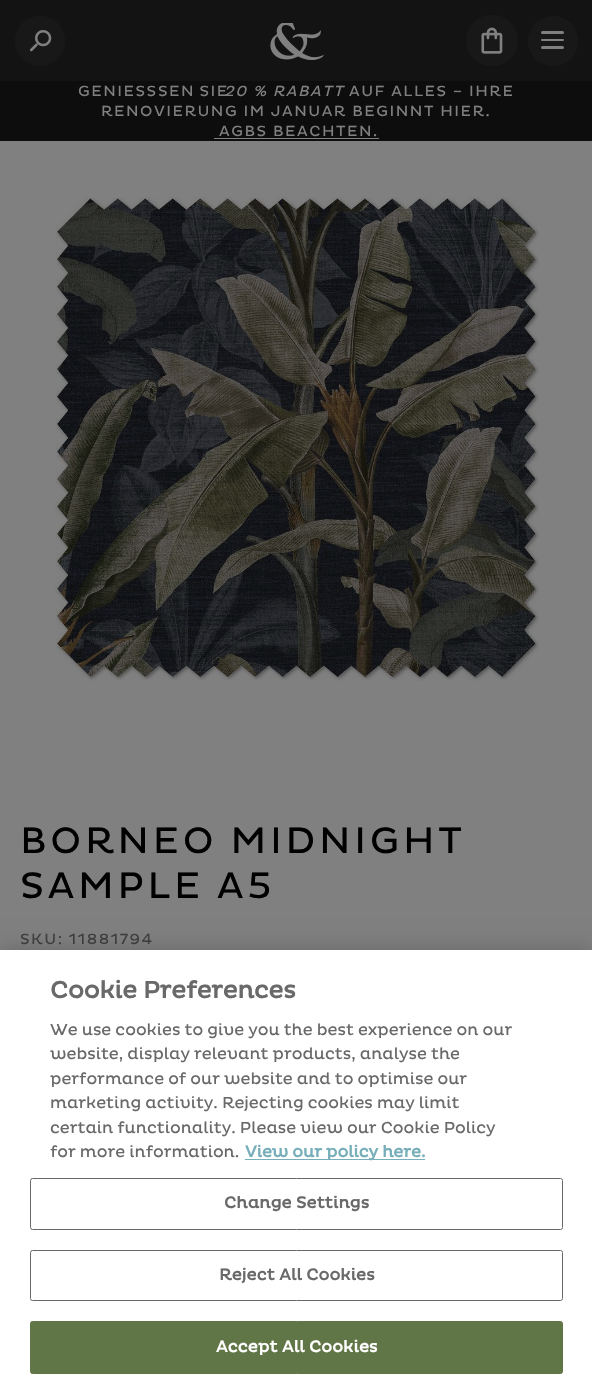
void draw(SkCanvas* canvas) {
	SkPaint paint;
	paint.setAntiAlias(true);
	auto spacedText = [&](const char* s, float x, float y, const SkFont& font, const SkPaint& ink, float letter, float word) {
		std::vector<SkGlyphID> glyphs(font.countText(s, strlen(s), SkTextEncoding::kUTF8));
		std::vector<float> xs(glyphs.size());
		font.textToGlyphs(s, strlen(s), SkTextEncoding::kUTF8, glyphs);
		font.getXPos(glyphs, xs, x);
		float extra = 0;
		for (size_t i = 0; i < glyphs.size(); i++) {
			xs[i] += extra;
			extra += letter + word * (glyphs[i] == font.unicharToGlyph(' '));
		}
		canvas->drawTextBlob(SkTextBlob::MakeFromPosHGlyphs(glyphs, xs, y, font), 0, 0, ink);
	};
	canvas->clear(0xff808080);
	paint.setColor(0xff131313);
	canvas->drawRect(SkRect::MakeXYWH(0, 0, 592, 81), paint);
	paint.setColor(0xff181818);
	canvas->drawCircle(40, 41, 25, paint);
	canvas->drawImageRect(SkImages::DeferredFromEncodedData(SkData::MakeFromFileName("img1.png")), SkRect::MakeXYWH(30, 30, 22, 22), SkSamplingOptions());
	canvas->drawImageRect(SkImages::DeferredFromEncodedData(SkData::MakeFromFileName("img2.png")), SkRect::MakeXYWH(270, 23, 54, 37), SkSamplingOptions());
	canvas->drawRoundRect(SkRect::MakeXYWH(466, 15, 52, 51), 25.5, 25.5, paint);
	canvas->drawImageRect(SkImages::DeferredFromEncodedData(SkData::MakeFromFileName("img3.png")), SkRect::MakeXYWH(481, 27, 22, 27), SkSamplingOptions());
	canvas->drawCircle(553, 41, 25, paint);
	paint.setColor(0xff808080);
	canvas->drawRoundRect(SkRect::MakeXYWH(541, 31, 23, 3), 1.5, 1.5, paint);
	canvas->drawRoundRect(SkRect::MakeXYWH(541, 39, 23, 2), 1, 1, paint);
	canvas->drawRoundRect(SkRect::MakeXYWH(541, 46, 23, 3), 1.5, 1.5, paint);
	paint.setColor(0xff0d0d0d);
	canvas->drawRect(SkRect::MakeXYWH(0, 81, 592, 60), paint);
	SkFont f1(fontMgr->matchFamilyStyle("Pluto", SkFontStyle::Normal()), 15);
	f1.setSubpixel(true);
	paint.setColor(0xff808080);
	spacedText("GENIESS", 78, 96, f1, paint, 1.5, 0);
	spacedText("SEN SIE", 158, 96, f1, paint, 1.5, -1);
	SkFont f2(fontMgr->matchFamilyStyle("Pluto", SkFontStyle::Italic()), 15);
	f2.setSubpixel(true);
	spacedText("20 % RABATT", 224, 96, f2, paint, 1.5, 0);
	spacedText("AUF ALLES – IHRE", 349, 96, f1, paint, 1.5, 0);
	spacedText("RENOVIERUNG IM JANUAR BEGINNT HIER.", 101, 116, f1, paint, 1.5, 0);
	spacedText("AGBS BEACHTEN.", 219, 136, f1, paint, 1.5, 0);
	canvas->drawRect(SkRect::MakeXYWH(214, 138, 165, 1), paint);
	canvas->drawImageRect(SkImages::DeferredFromEncodedData(SkData::MakeFromFileName("img4.png")), SkRect::MakeXYWH(55, 197, 484, 484), SkSamplingOptions());
	SkFont f3(fontMgr->matchFamilyStyle("Pluto", SkFontStyle::Normal()), 37.5);
	f3.setSubpixel(true);
	paint.setColor(0xff000000);
	spacedText("BORNEO MIDNIGHT", 20, 853, f3, paint, 3.75, 0);
	spacedText("SAMPLE A5", 20, 898, f3, paint, 3.75, 0);
	paint.setColor(0xff404040);
	spacedText("SKU: 11881794", 20, 944, f1, paint, 1.5, 0);
	paint.setColor(0x33000000);
	paint.setMaskFilter(SkMaskFilter::MakeBlur(kNormal_SkBlurStyle, 11));
	canvas->drawRect(SkRect::MakeXYWH(0, 950, 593, 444), paint);
	paint.setMaskFilter(nullptr);
	paint.setColor(0xffffffff);
	canvas->drawRect(SkRect::MakeXYWH(0, 950, 592, 443), paint);
	SkFont f4(fontMgr->matchFamilyStyle("Pluto", SkFontStyle::Bold()), 24);
	f4.setSubpixel(true);
	paint.setColor(0xff696969);
	canvas->drawString("Cookie Preferences", 50, 998, f4, paint);
	SkFont f5(fontMgr->matchFamilyStyle("Pluto", SkFontStyle::Normal()), 16.25);
	f5.setSubpixel(true);
	canvas->drawString("We use cookies to give you the best experience on our", 50, 1035, f5, paint);
	canvas->drawString("website, display relevant products, analyse the", 50, 1059, f5, paint);
	canvas->drawString("performance of our website and to optimise our", 50, 1084, f5, paint);
	canvas->drawString("marketing activity. Rejecting cookies may limit", 50, 1108, f5, paint);
	canvas->drawString("certain functionality. Please view our Cookie Policy", 50, 1133, f5, paint);
	canvas->drawString("for more information.", 50, 1157, f5, paint);
	paint.setColor(0xff76aeb9);
	canvas->drawRect(SkRect::MakeXYWH(245, 1159, 180, 1), paint);
	SkFont f6(fontMgr->matchFamilyStyle("Pluto", SkFontStyle::Bold()), 16.25);
	f6.setSubpixel(true);
	canvas->drawString("View our policy here.", 245, 1157, f6, paint);
	paint.setStroke(true);
	paint.setStrokeWidth(1);
	paint.setColor(0xff696969);
	canvas->drawRoundRect(SkRect::MakeXYWH(30.5, 1178.5, 532, 51), 2, 2, paint);
	paint.setStroke(false);
	spacedText("Change Settings", 224, 1208, f6, paint, 0.2, 0);
	paint.setStroke(true);
	canvas->drawRoundRect(SkRect::MakeXYWH(30.5, 1250.5, 532, 50), 2, 2, paint);
	paint.setStroke(false);
	spacedText("Reject All Cookies", 219, 1280, f6, paint, 0.2, 0);
	paint.setColor(0xff617646);
	canvas->drawRoundRect(SkRect::MakeXYWH(30.5, 1321.5, 532, 52), 2, 2, paint);
	paint.setStroke(true);
	canvas->drawRoundRect(SkRect::MakeXYWH(30.5, 1321.5, 532, 52), 2, 2, paint);
	paint.setStroke(false);
	paint.setColor(0xffffffff);
	spacedText("Accept All Cookies", 216, 1352, f6, paint, 0.2, 0);
}
